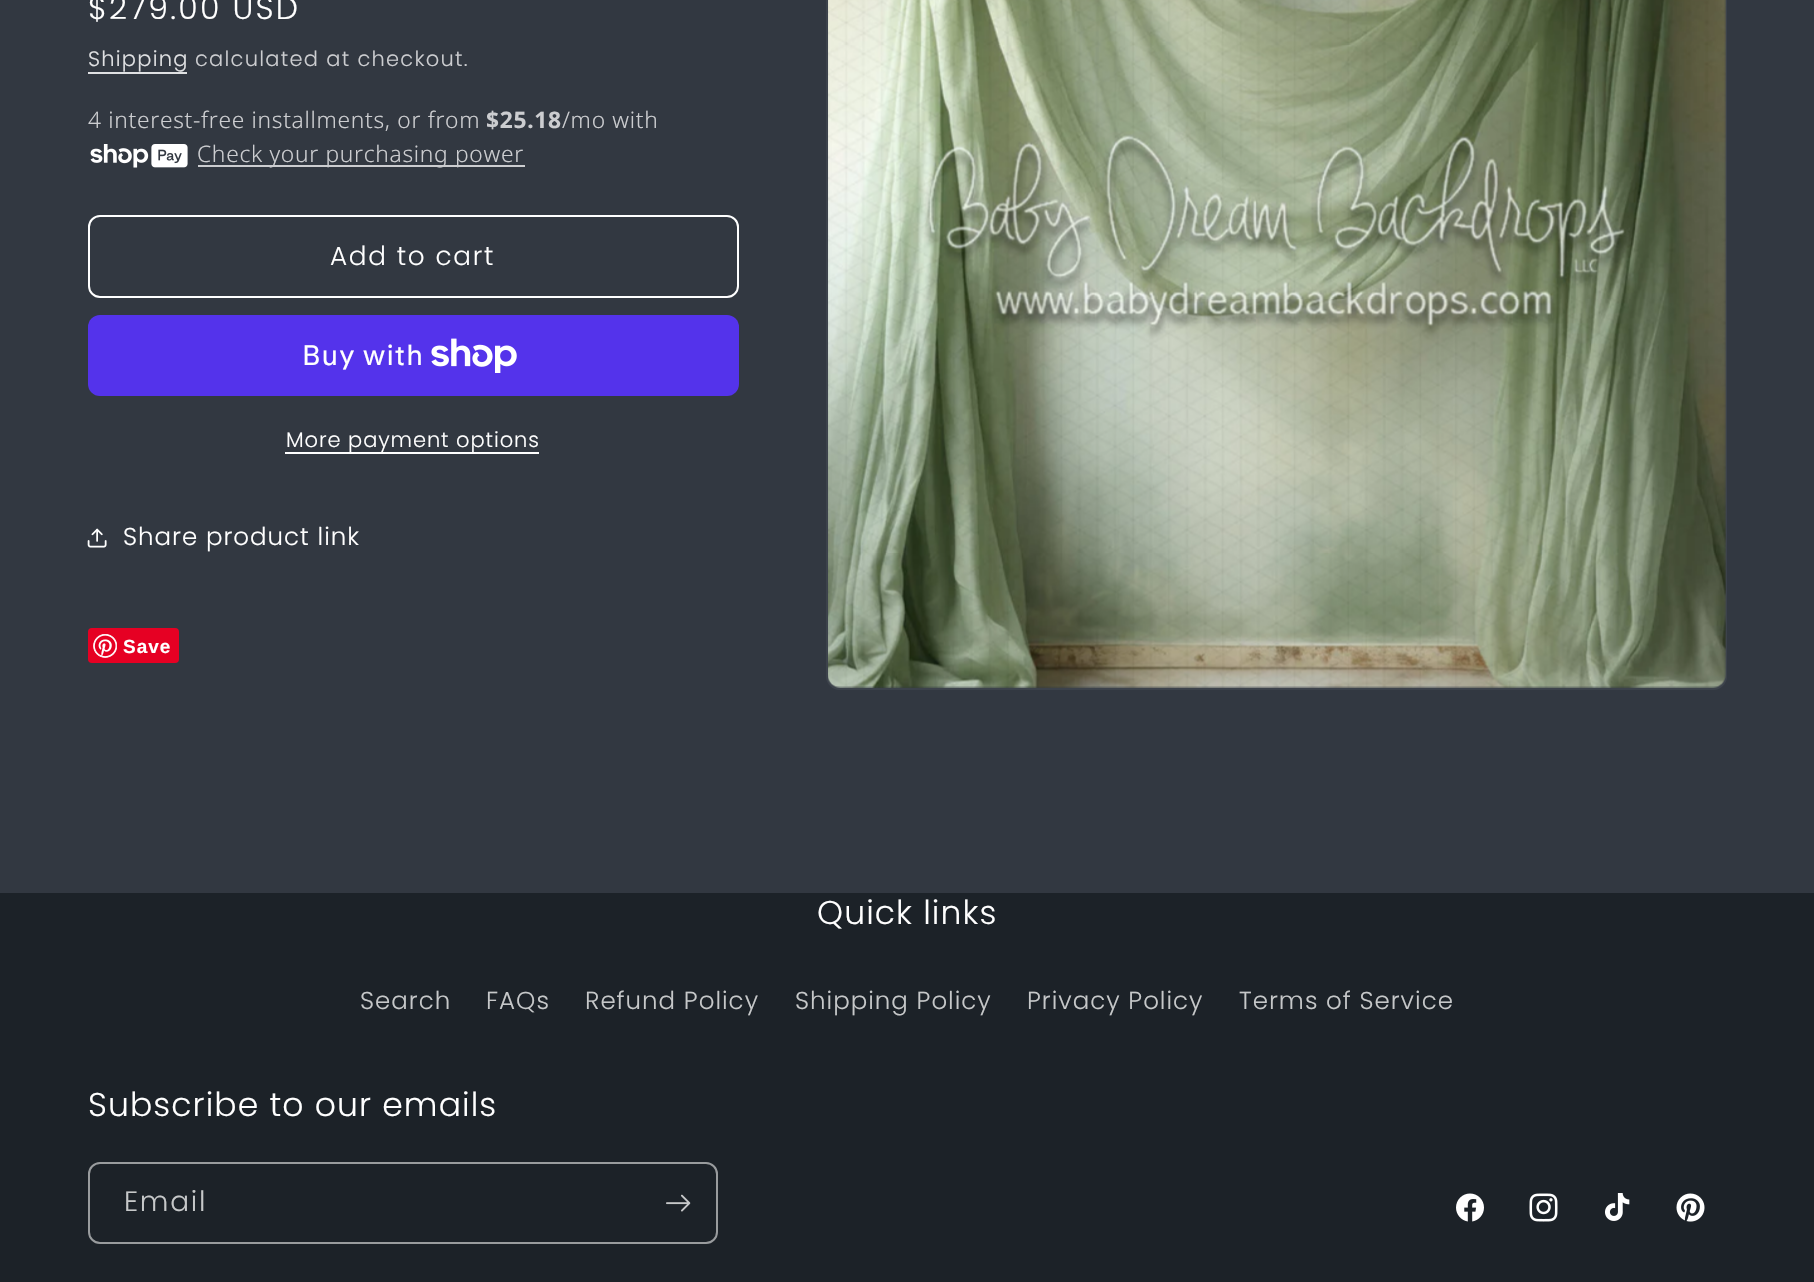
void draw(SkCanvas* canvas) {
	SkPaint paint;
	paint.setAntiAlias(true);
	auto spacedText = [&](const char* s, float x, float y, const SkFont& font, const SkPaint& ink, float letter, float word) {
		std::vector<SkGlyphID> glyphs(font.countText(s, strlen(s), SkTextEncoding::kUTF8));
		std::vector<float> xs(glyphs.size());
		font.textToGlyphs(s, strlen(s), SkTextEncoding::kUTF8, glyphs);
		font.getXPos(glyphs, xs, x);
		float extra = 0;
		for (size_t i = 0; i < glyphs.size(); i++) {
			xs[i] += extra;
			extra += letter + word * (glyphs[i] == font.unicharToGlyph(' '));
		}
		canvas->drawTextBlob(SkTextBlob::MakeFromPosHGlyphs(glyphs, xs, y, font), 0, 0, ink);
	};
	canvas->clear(0xff323841);
	SkFont f1(fontMgr->matchFamilyStyle("Poppins", SkFontStyle(300, SkFontStyle::kNormal_Width, SkFontStyle::kUpright_Slant)), 31.5);
	f1.setSubpixel(true);
	paint.setColor(0xffffffff);
	spacedText("$279.00 USD", 88, 19, f1, paint, 2.25, 0);
	SkFont f2(fontMgr->matchFamilyStyle("Poppins", SkFontStyle(300, SkFontStyle::kNormal_Width, SkFontStyle::kUpright_Slant)), 21);
	f2.setSubpixel(true);
	paint.setColor(0xffe0e1e3);
	spacedText("Shipping", 88, 66, f2, paint, 1.25, 0);
	canvas->drawRect(SkRect::MakeXYWH(88, 72, 99, 2), paint);
	paint.setColor(0xffcccdd0);
	spacedText("calculated at checkout.", 195, 66, f2, paint, 1.25, 0);
	SkFont f3(fontMgr->matchFamilyStyle("Noto Sans", SkFontStyle(300, SkFontStyle::kNormal_Width, SkFontStyle::kUpright_Slant)), 22.75);
	f3.setSubpixel(true);
	spacedText("4 interest-free installments, or from", 88, 128, f3, paint, 0.7, 0);
	SkFont f4(fontMgr->matchFamilyStyle("Noto Sans", SkFontStyle::Bold()), 22.75);
	f4.setSubpixel(true);
	spacedText("$25.18", 486, 128, f4, paint, 0.7, 0);
	spacedText("/mo with", 562, 128, f3, paint, 0.7, 0);
	canvas->drawImageRect(SkImages::DeferredFromEncodedData(SkData::MakeFromFileName("img1.png")), SkRect::MakeXYWH(90, 144, 98, 24), SkSamplingOptions());
	canvas->drawRect(SkRect::MakeXYWH(198, 165, 327, 2), paint);
	spacedText("Check your purchasing power", 197, 162, f3, paint, 0.7, 0);
	paint.setStroke(true);
	paint.setStrokeWidth(2);
	paint.setColor(0xffffffff);
	canvas->drawRoundRect(SkRect::MakeXYWH(89, 216, 649, 81), 11, 11, paint);
	SkFont f5(fontMgr->matchFamilyStyle("Poppins", SkFontStyle(300, SkFontStyle::kNormal_Width, SkFontStyle::kUpright_Slant)), 26.25);
	f5.setSubpixel(true);
	paint.setStroke(false);
	spacedText("Add to cart", 330, 265, f5, paint, 1.75, 0);
	paint.setColor(0xff5433eb);
	canvas->drawRoundRect(SkRect::MakeXYWH(88, 315, 651, 81), 12, 12, paint);
	SkFont f6(fontMgr->matchFamilyStyle("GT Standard", SkFontStyle::Normal()), 28);
	f6.setSubpixel(true);
	paint.setColor(0xffffffff);
	spacedText("Buy with", 302, 365, f6, paint, 1, 0);
	canvas->drawImageRect(SkImages::DeferredFromEncodedData(SkData::MakeFromFileName("img2.png")), SkRect::MakeXYWH(431, 338, 86, 35), SkSamplingOptions());
	canvas->drawRect(SkRect::MakeXYWH(285, 452, 254, 2), paint);
	spacedText("More payment options", 286, 447, f2, paint, 0.9, 0);
	canvas->drawImageRect(SkImages::DeferredFromEncodedData(SkData::MakeFromFileName("img3.png")), SkRect::MakeXYWH(87, 528, 20, 20), SkSamplingOptions());
	SkFont f7(fontMgr->matchFamilyStyle("Poppins", SkFontStyle(300, SkFontStyle::kNormal_Width, SkFontStyle::kUpright_Slant)), 24.5);
	f7.setSubpixel(true);
	spacedText("Share product link", 123, 545, f7, paint, 1, 0);
	paint.setColor(0xffe60023);
	canvas->drawRoundRect(SkRect::MakeXYWH(88, 628, 91, 35), 4, 4, paint);
	canvas->drawImageRect(SkImages::DeferredFromEncodedData(SkData::MakeFromFileName("img4.png")), SkRect::MakeXYWH(93, 634, 24, 24), SkSamplingOptions());
	SkFont f8(fontMgr->matchFamilyStyle("Liberation Sans", SkFontStyle::Bold()), 19);
	f8.setSubpixel(true);
	paint.setColor(0xffffffff);
	spacedText("Save", 123, 653, f8, paint, 1, 0);
	paint.setStroke(true);
	paint.setColor(0xff3c424b);
	canvas->drawRoundRect(SkRect::MakeXYWH(827, -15, 899, 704), 13, 13, paint);
	canvas->drawImageRect(SkImages::DeferredFromEncodedData(SkData::MakeFromFileName("img5.png")), SkRect::MakeXYWH(828, 0, 898, 688), SkSamplingOptions());
	paint.setStroke(false);
	paint.setColor(0xff1c2228);
	canvas->drawRect(SkRect::MakeXYWH(0, 893, 1814, 389), paint);
	SkFont f9(fontMgr->matchFamilyStyle("Poppins", SkFontStyle(300, SkFontStyle::kNormal_Width, SkFontStyle::kUpright_Slant)), 33);
	f9.setSubpixel(true);
	paint.setColor(0xffffffff);
	spacedText("Quick links", 817, 924, f9, paint, 1.1, 0);
	paint.setColor(0xffc6c8c9);
	spacedText("Search", 360, 1009, f7, paint, 1, 0);
	spacedText("FAQs", 486, 1009, f7, paint, 1, 0);
	spacedText("Refund Policy", 585, 1009, f7, paint, 1, 0);
	spacedText("Shipping Policy", 795, 1009, f7, paint, 1, 0);
	spacedText("Privacy Policy", 1027, 1009, f7, paint, 1, 0);
	spacedText("Terms of Service", 1239, 1009, f7, paint, 1, 0);
	paint.setColor(0xffffffff);
	spacedText("Subscribe to our emails", 88, 1116, f9, paint, 1.1, 0);
	paint.setStroke(true);
	paint.setColor(0xff999c9e);
	canvas->drawRoundRect(SkRect::MakeXYWH(89, 1163, 628, 80), 11, 11, paint);
	SkFont f10(fontMgr->matchFamilyStyle("Poppins", SkFontStyle(300, SkFontStyle::kNormal_Width, SkFontStyle::kUpright_Slant)), 28);
	f10.setSubpixel(true);
	paint.setStroke(false);
	paint.setColor(0xffc6c8c9);
	spacedText("Email", 124, 1211, f10, paint, 1.75, 0);
	canvas->drawImageRect(SkImages::DeferredFromEncodedData(SkData::MakeFromFileName("img6.png")), SkRect::MakeXYWH(666, 1194, 25, 18), SkSamplingOptions());
	canvas->drawImageRect(SkImages::DeferredFromEncodedData(SkData::MakeFromFileName("img7.png")), SkRect::MakeXYWH(1456, 1193, 28, 29), SkSamplingOptions());
	canvas->drawImageRect(SkImages::DeferredFromEncodedData(SkData::MakeFromFileName("img8.png")), SkRect::MakeXYWH(1529, 1193, 29, 29), SkSamplingOptions());
	canvas->drawImageRect(SkImages::DeferredFromEncodedData(SkData::MakeFromFileName("img9.png")), SkRect::MakeXYWH(1605, 1193, 25, 28), SkSamplingOptions());
	canvas->drawImageRect(SkImages::DeferredFromEncodedData(SkData::MakeFromFileName("img10.png")), SkRect::MakeXYWH(1676, 1193, 29, 29), SkSamplingOptions());
}
